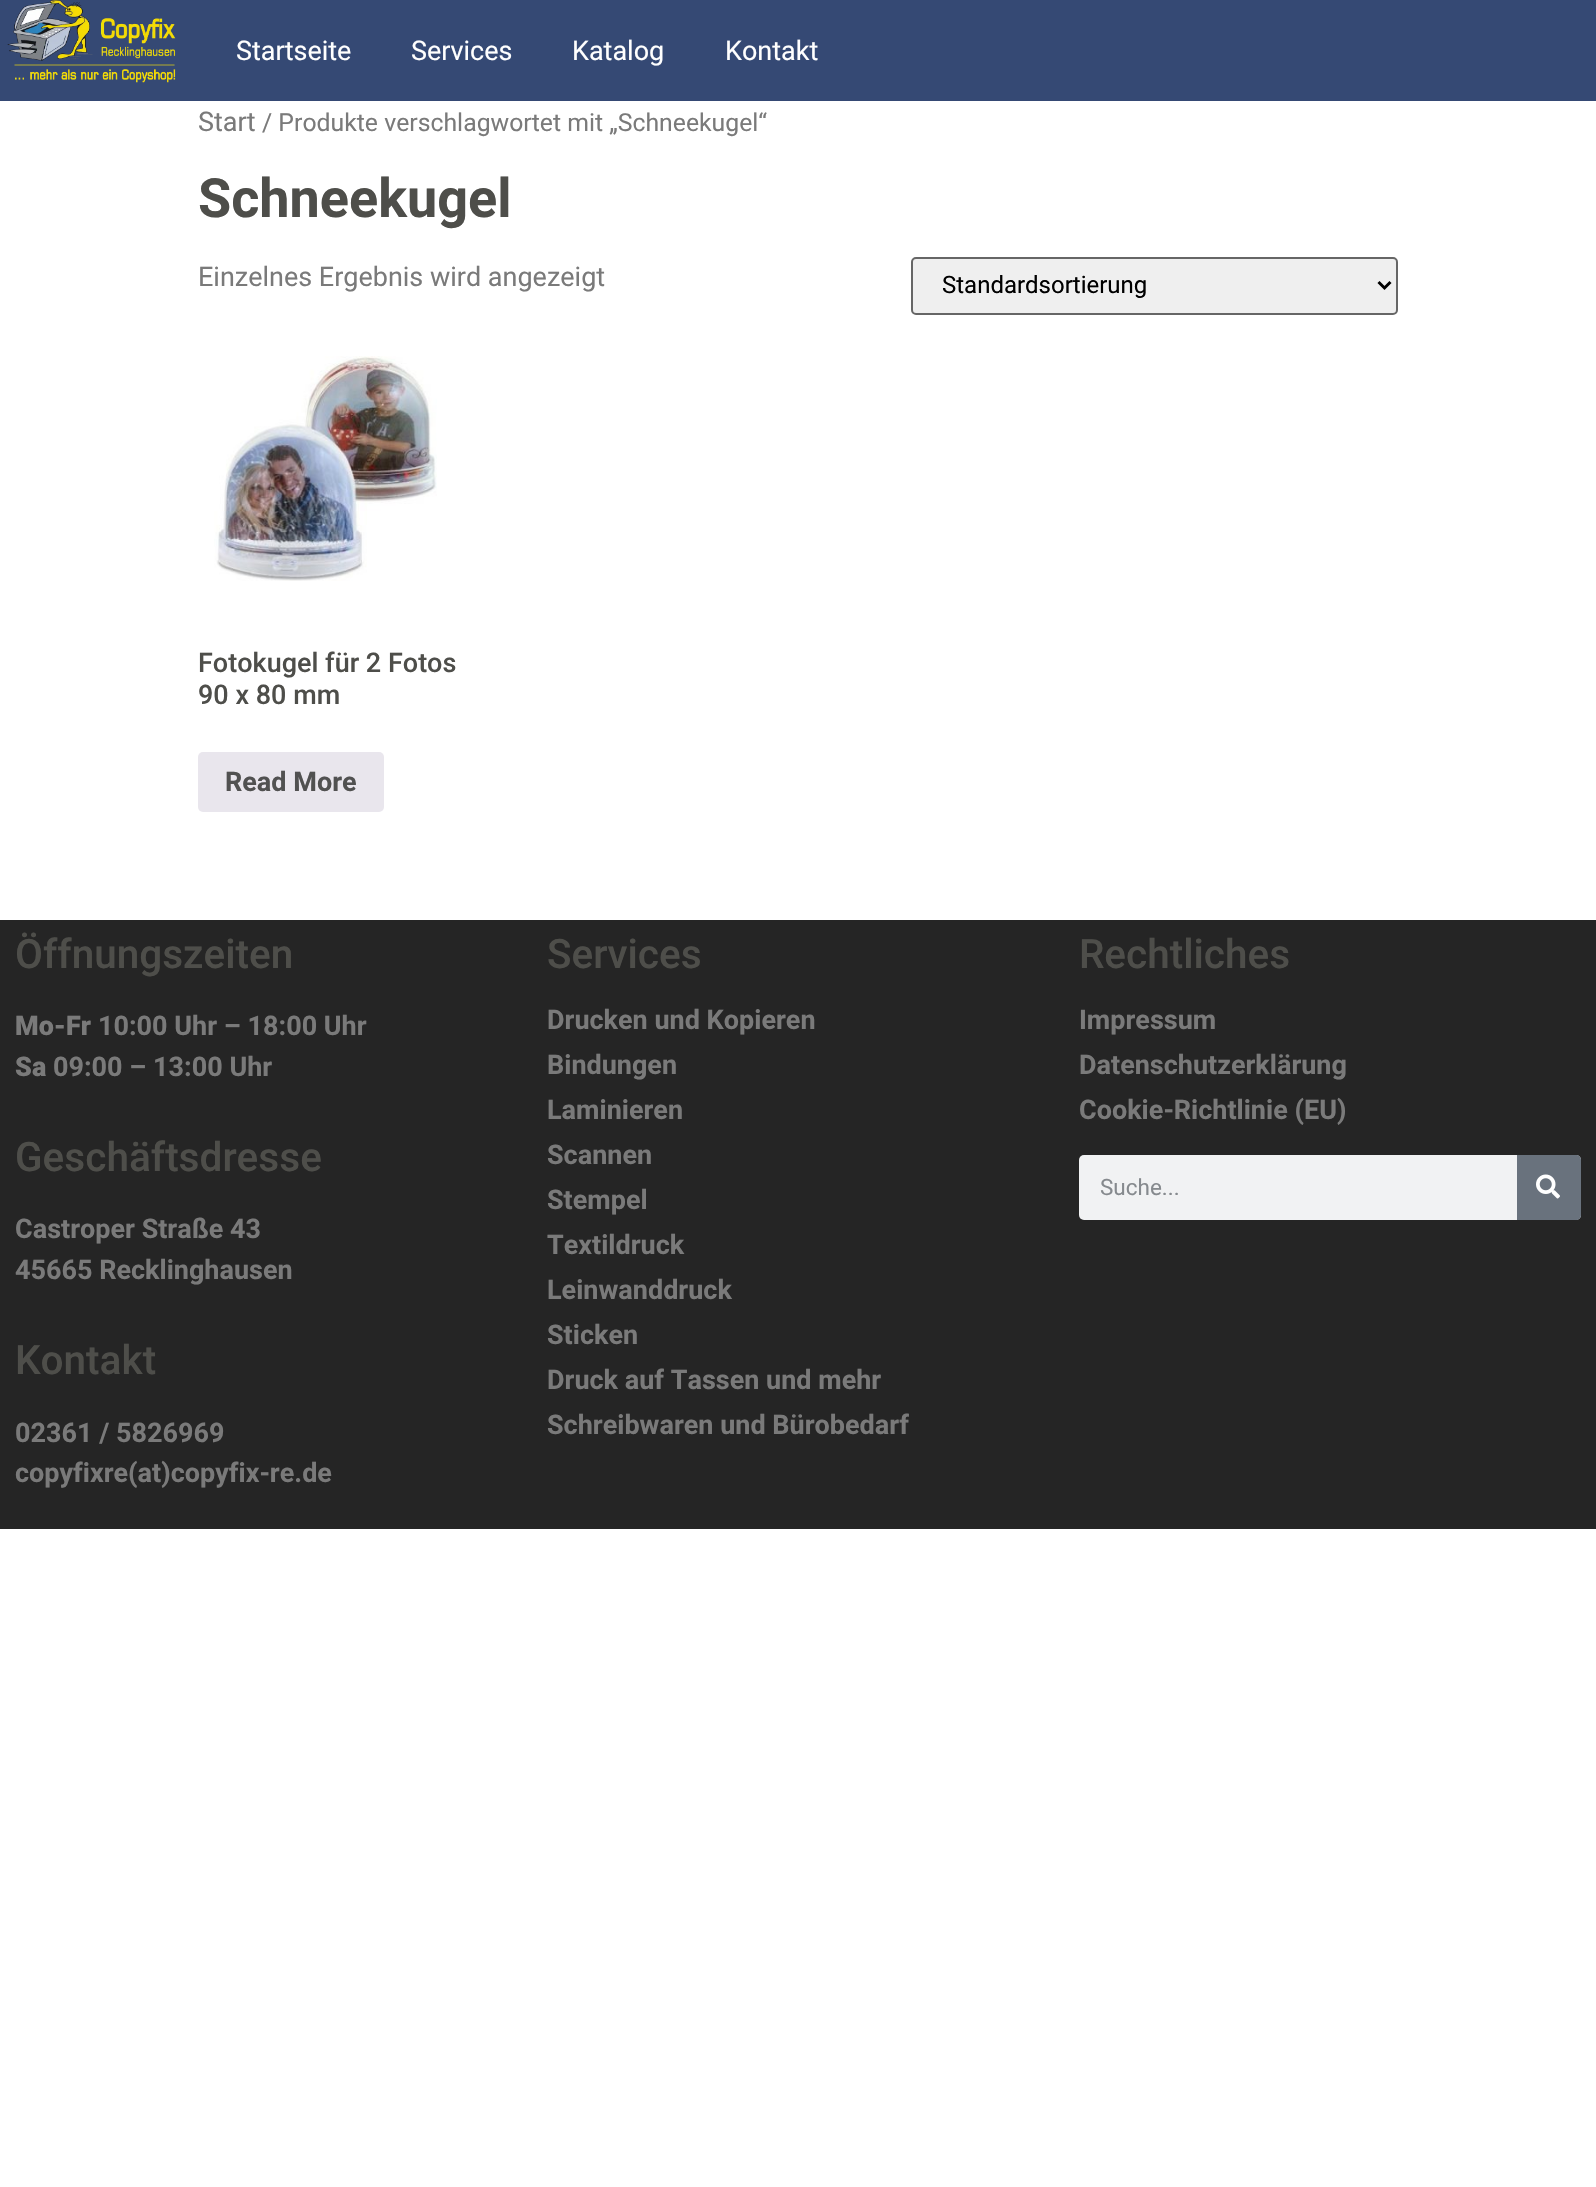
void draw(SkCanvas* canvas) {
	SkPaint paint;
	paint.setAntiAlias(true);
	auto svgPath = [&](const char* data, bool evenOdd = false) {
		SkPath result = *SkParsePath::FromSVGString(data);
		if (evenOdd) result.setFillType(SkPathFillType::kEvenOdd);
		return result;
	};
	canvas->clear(0xffffffff);
	paint.setColor(0xff354974);
	canvas->drawRect(SkRect::MakeXYWH(0, 0, 1596, 101), paint);
	canvas->drawImageRect(SkImages::DeferredFromEncodedData(SkData::MakeFromFileName("img1.png")), SkRect::MakeXYWH(7, 0, 169, 83), SkSamplingOptions());
	SkFont f1(fontMgr->matchFamilyStyle("Roboto", SkFontStyle::Normal()), 27);
	f1.setSubpixel(true);
	paint.setColor(0xffffffff);
	canvas->drawString("Startseite", 236, 60, f1, paint);
	canvas->drawString("Services", 411, 60, f1, paint);
	canvas->drawString("Katalog", 572, 60, f1, paint);
	canvas->drawString("Kontakt", 725, 60, f1, paint);
	paint.setColor(0xff7a7a7a);
	canvas->drawString("Start", 198, 131, f1, paint);
	SkFont f2(fontMgr->matchFamilyStyle("Roboto", SkFontStyle::Normal()), 24.8);
	f2.setSubpixel(true);
	canvas->drawString("/ Produkte verschlagwortet mit „Schneekugel“", 262, 131, f2, paint);
	SkFont f3(fontMgr->matchFamilyStyle("Roboto", SkFontStyle::Bold()), 54);
	f3.setSubpixel(true);
	paint.setColor(0xff4e4e4a);
	canvas->drawString("Schneekugel", 198, 217, f3, paint);
	paint.setColor(0xff7a7a7a);
	canvas->drawString("Einzelnes Ergebnis wird angezeigt", 198, 286, f1, paint);
	paint.setColor(0xffefefef);
	canvas->drawRoundRect(SkRect::MakeXYWH(912, 258, 485, 56), 4, 4, paint);
	paint.setStroke(true);
	paint.setStrokeWidth(2);
	paint.setColor(0xff666666);
	canvas->drawRoundRect(SkRect::MakeXYWH(912, 258, 485, 56), 4, 4, paint);
	paint.setStrokeWidth(3);
	paint.setColor(0xff000000);
	canvas->drawPath(svgPath("M1378.5 282L1384.5 288L1390.5 282"), paint);
	SkFont f4(fontMgr->matchFamilyStyle("Roboto", SkFontStyle::Normal()), 24);
	f4.setSubpixel(true);
	paint.setStroke(false);
	canvas->drawString("Standardsortierung", 942, 293, f4, paint);
	canvas->drawImageRect(SkImages::DeferredFromEncodedData(SkData::MakeFromFileName("img2.png")), SkRect::MakeXYWH(214, 356, 223, 225), SkSamplingOptions());
	SkFont f5(fontMgr->matchFamilyStyle("Roboto", SkFontStyle(500, SkFontStyle::kNormal_Width, SkFontStyle::kUpright_Slant)), 27);
	f5.setSubpixel(true);
	paint.setColor(0xff4e4e4a);
	canvas->drawString("Fotokugel für 2 Fotos", 198, 672, f5, paint);
	canvas->drawString("90 x 80 mm", 198, 704, f5, paint);
	paint.setColor(0xffe9e6ed);
	canvas->drawRoundRect(SkRect::MakeXYWH(198, 752, 186, 60), 5, 5, paint);
	SkFont f6(fontMgr->matchFamilyStyle("Roboto", SkFontStyle::Bold()), 27);
	f6.setSubpixel(true);
	paint.setColor(0xff515151);
	canvas->drawString("Read More", 225, 791, f6, paint);
	paint.setColor(0xff252525);
	canvas->drawRect(SkRect::MakeXYWH(0, 920, 1596, 609), paint);
	SkFont f7(fontMgr->matchFamilyStyle("Roboto", SkFontStyle(500, SkFontStyle::kNormal_Width, SkFontStyle::kUpright_Slant)), 40.5);
	f7.setSubpixel(true);
	paint.setColor(0xff4e4e4a);
	canvas->drawString("Öffnungszeiten", 15, 968, f7, paint);
	SkFont f8(fontMgr->matchFamilyStyle("Roboto", SkFontStyle(900, SkFontStyle::kNormal_Width, SkFontStyle::kUpright_Slant)), 27);
	f8.setSubpixel(true);
	paint.setColor(0xff7a7a7a);
	canvas->drawString("Mo-Fr", 15, 1035, f8, paint);
	canvas->drawString("10:00 Uhr – 18:00 Uhr", 98, 1035, f6, paint);
	canvas->drawString("Sa", 15, 1076, f8, paint);
	canvas->drawString("09:00 – 13:00 Uhr", 53, 1076, f6, paint);
	paint.setColor(0xff4e4e4a);
	canvas->drawString("Geschäftsdresse", 15, 1171, f7, paint);
	paint.setColor(0xff7a7a7a);
	canvas->drawString("Castroper Straße 43", 15, 1238, f6, paint);
	canvas->drawString("45665 Recklinghausen", 15, 1279, f6, paint);
	paint.setColor(0xff4e4e4a);
	canvas->drawString("Kontakt", 15, 1374, f7, paint);
	paint.setColor(0xff7a7a7a);
	canvas->drawString("02361 / 5826969", 15, 1442, f6, paint);
	canvas->drawString("copyfixre(at)copyfix-re.de", 15, 1482, f6, paint);
	paint.setColor(0xff4e4e4a);
	canvas->drawString("Services", 547, 968, f7, paint);
	paint.setColor(0xff7a7a7a);
	canvas->drawString("Drucken und Kopieren", 547, 1029, f6, paint);
	canvas->drawString("Bindungen", 547, 1074, f6, paint);
	canvas->drawString("Laminieren", 547, 1119, f6, paint);
	canvas->drawString("Scannen", 547, 1164, f6, paint);
	canvas->drawString("Stempel", 547, 1209, f6, paint);
	canvas->drawString("Textildruck", 547, 1254, f6, paint);
	canvas->drawString("Leinwanddruck", 547, 1299, f6, paint);
	canvas->drawString("Sticken", 547, 1344, f6, paint);
	canvas->drawString("Druck auf Tassen und mehr", 547, 1389, f6, paint);
	canvas->drawString("Schreibwaren und Bürobedarf", 547, 1434, f6, paint);
	paint.setColor(0xff4e4e4a);
	canvas->drawString("Rechtliches", 1079, 968, f7, paint);
	paint.setColor(0xff7a7a7a);
	canvas->drawString("Impressum", 1079, 1029, f6, paint);
	canvas->drawString("Datenschutzerklärung", 1079, 1074, f6, paint);
	canvas->drawString("Cookie-Richtlinie (EU)", 1079, 1119, f6, paint);
	paint.setColor(0xfff1f2f3);
	canvas->drawRoundRect(SkRect::MakeXYWH(1079, 1155, 502, 65), 5, 5, paint);
	SkFont f9(fontMgr->matchFamilyStyle("Roboto", SkFontStyle::Normal()), 22.5);
	f9.setSubpixel(true);
	paint.setColor(0xff868a8e);
	canvas->drawString("Suche...", 1100, 1195, f9, paint);
	paint.setColor(0xff69727d);
	canvas->drawPath(svgPath("M1517 1155H1576C1579 1155 1581 1157 1581 1160V1215C1581 1218 1579 1220 1576 1220H1517Z"), paint);
	canvas->drawImageRect(SkImages::DeferredFromEncodedData(SkData::MakeFromFileName("img3.png")), SkRect::MakeXYWH(1536, 1174, 24, 25), SkSamplingOptions());
}
